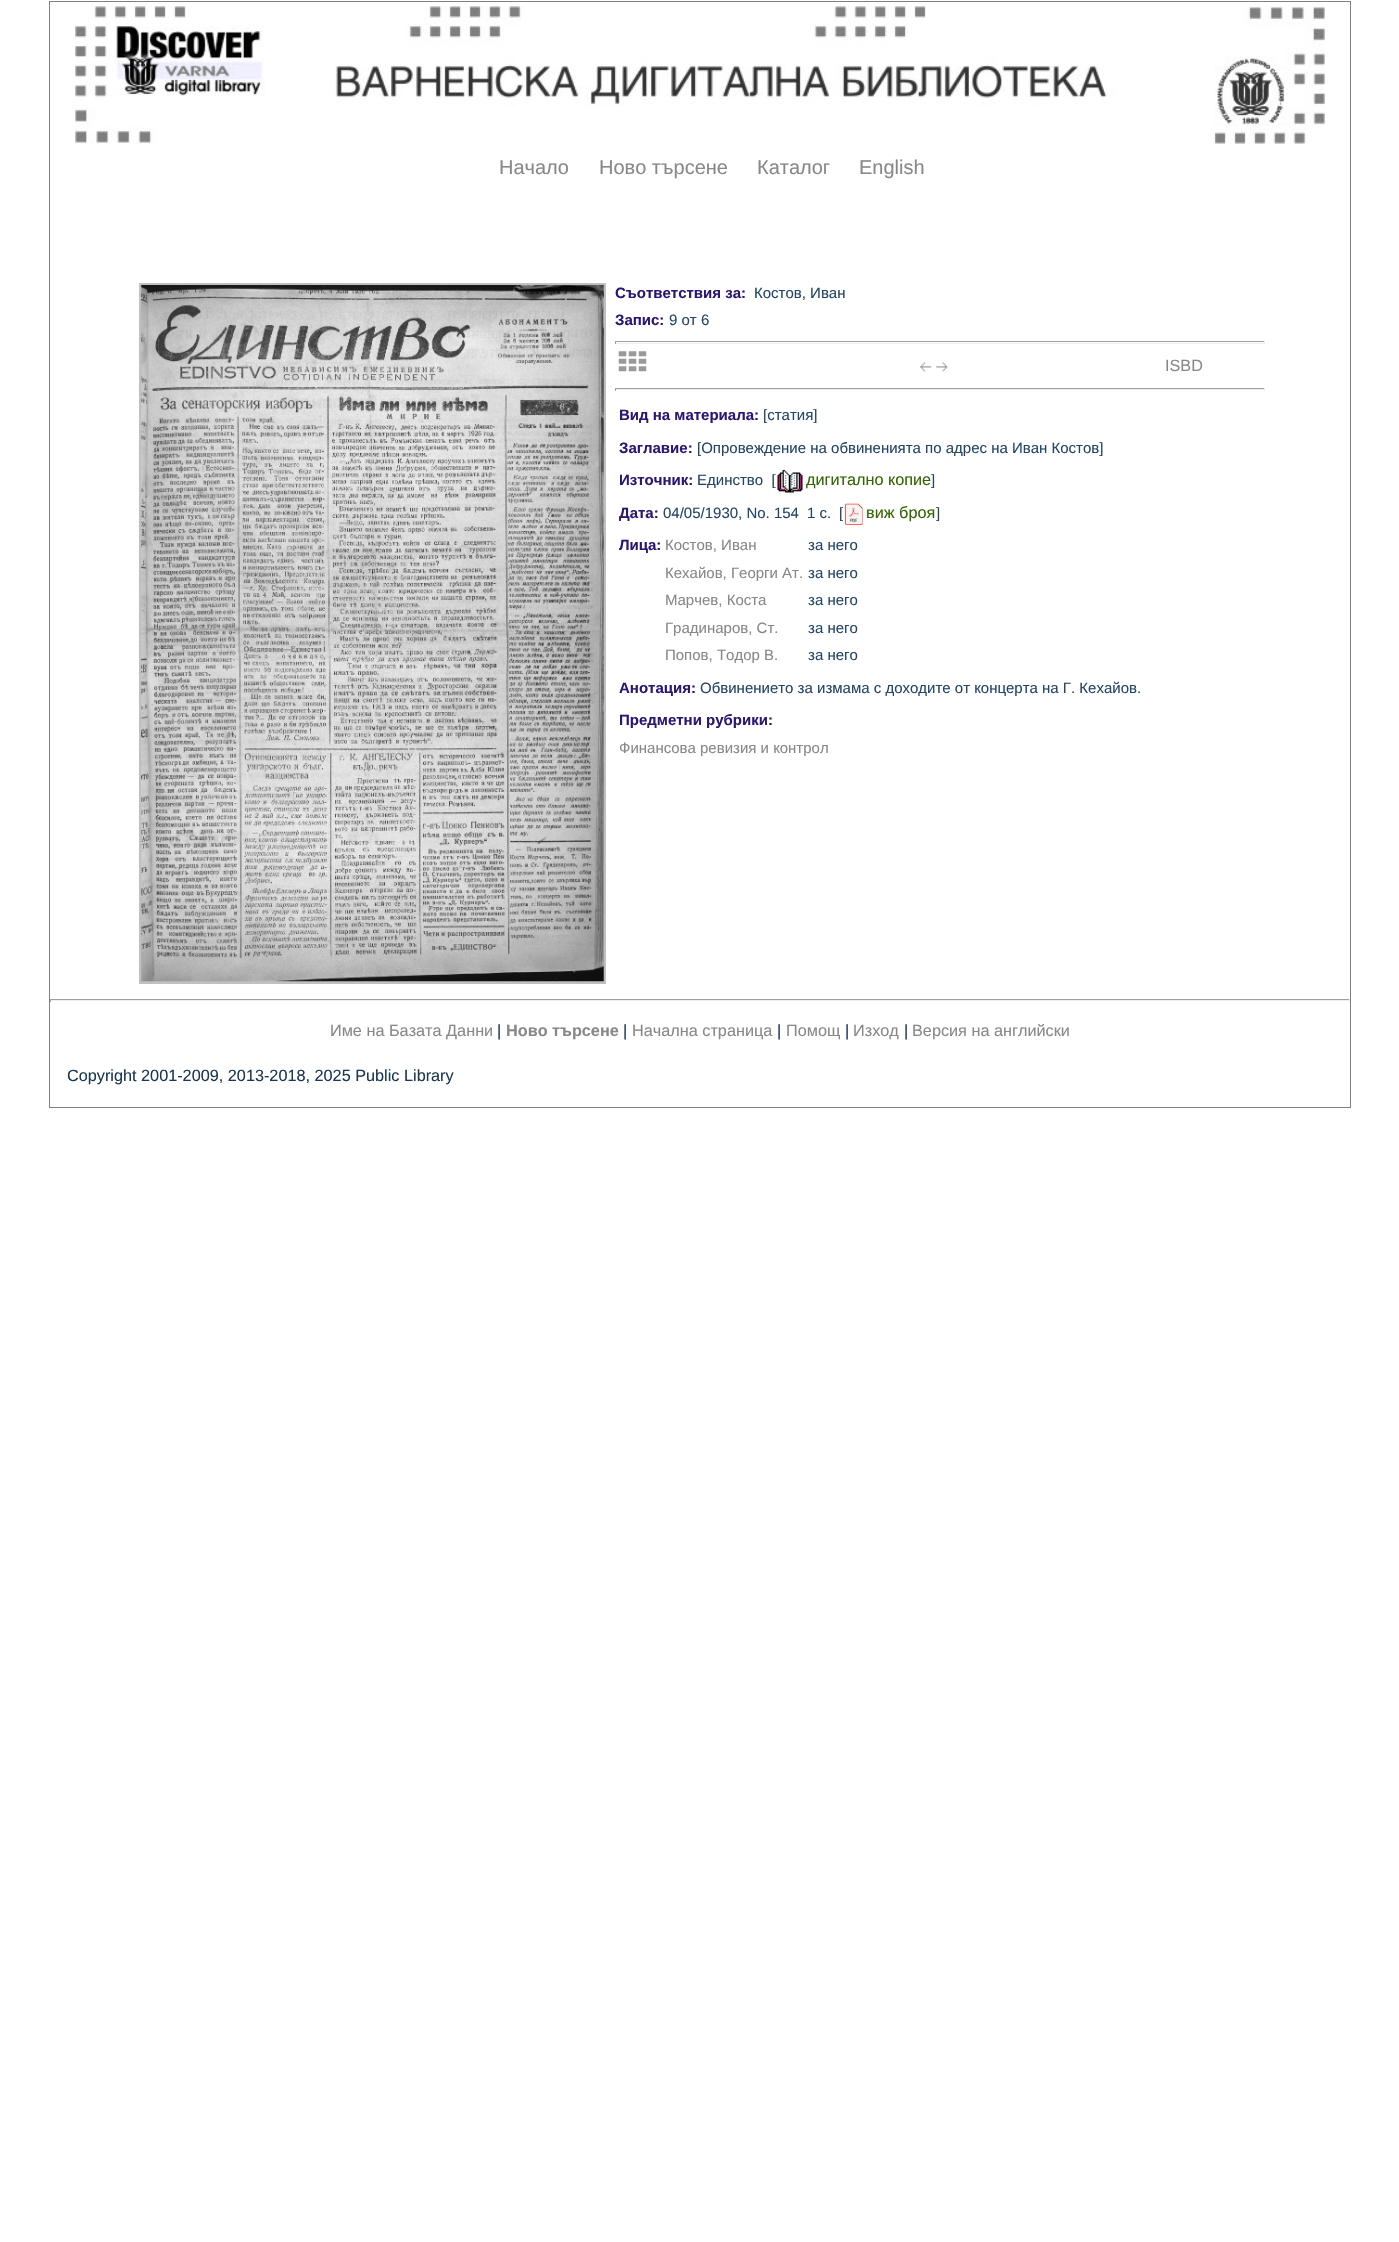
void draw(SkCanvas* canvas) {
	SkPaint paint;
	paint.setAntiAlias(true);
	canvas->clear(0xffffffff);
	paint.setStroke(true);
	paint.setStrokeWidth(1);
	paint.setColor(0xff808080);
	canvas->drawRect(SkRect::MakeXYWH(49.5, 1.5, 1301, 1106), paint);
	canvas->drawImageRect(SkImages::DeferredFromEncodedData(SkData::MakeFromFileName("img1.png")), SkRect::MakeXYWH(75, 6, 1250, 138), SkSamplingOptions());
	SkFont f1(fontMgr->matchFamilyStyle("Liberation Sans", SkFontStyle::Normal()), 20);
	f1.setSubpixel(true);
	paint.setStroke(false);
	paint.setColor(0xff888888);
	canvas->drawString("Начало", 499, 174, f1, paint);
	canvas->drawString("Ново търсене", 599, 174, f1, paint);
	canvas->drawString("Каталог", 757, 174, f1, paint);
	canvas->drawString("English", 859, 174, f1, paint);
	paint.setStroke(true);
	paint.setStrokeWidth(3);
	paint.setColor(0xffc0c0c0);
	canvas->drawRect(SkRect::MakeXYWH(140.5, 284.5, 464, 698), paint);
	canvas->drawImageRect(SkImages::DeferredFromEncodedData(SkData::MakeFromFileName("img2.png")), SkRect::MakeXYWH(141, 285, 463, 697), SkSamplingOptions());
	SkFont f2(fontMgr->matchFamilyStyle("Liberation Sans", SkFontStyle::Bold()), 15);
	f2.setSubpixel(true);
	paint.setStroke(false);
	paint.setColor(0xff2a1773);
	canvas->drawString("Съответствия за:", 615, 298, f2, paint);
	SkFont f3(fontMgr->matchFamilyStyle("Liberation Sans", SkFontStyle::Normal()), 15);
	f3.setSubpixel(true);
	paint.setColor(0xff234567);
	canvas->drawString("Костов, Иван", 754, 298, f3, paint);
	paint.setColor(0xff2a1773);
	canvas->drawString("Запис:", 615, 325, f2, paint);
	paint.setColor(0xff234567);
	canvas->drawString("9 от 6", 669, 325, f3, paint);
	paint.setColor(0xff9f9f9f);
	canvas->drawRect(SkRect::MakeXYWH(615, 341, 650, 1), paint);
	paint.setColor(0xffeeeeee);
	canvas->drawRect(SkRect::MakeXYWH(1264, 341, 1, 3), paint);
	canvas->drawRect(SkRect::MakeXYWH(615, 343, 650, 1), paint);
	paint.setColor(0xff9f9f9f);
	canvas->drawRect(SkRect::MakeXYWH(615, 341, 1, 3), paint);
	canvas->drawImageRect(SkImages::DeferredFromEncodedData(SkData::MakeFromFileName("img3.png")), SkRect::MakeXYWH(618, 351, 29, 21), SkSamplingOptions());
	canvas->drawImageRect(SkImages::DeferredFromEncodedData(SkData::MakeFromFileName("img4.png")), SkRect::MakeXYWH(920, 362, 12, 10), SkSamplingOptions());
	canvas->drawImageRect(SkImages::DeferredFromEncodedData(SkData::MakeFromFileName("img5.png")), SkRect::MakeXYWH(936, 362, 12, 10), SkSamplingOptions());
	SkFont f4(fontMgr->matchFamilyStyle("Liberation Sans", SkFontStyle::Normal()), 16.25);
	f4.setSubpixel(true);
	paint.setColor(0xff888888);
	canvas->drawString("ISBD", 1165, 371, f4, paint);
	paint.setColor(0xff9f9f9f);
	canvas->drawRect(SkRect::MakeXYWH(615, 388, 650, 1), paint);
	paint.setColor(0xffeeeeee);
	canvas->drawRect(SkRect::MakeXYWH(1264, 388, 1, 3), paint);
	canvas->drawRect(SkRect::MakeXYWH(615, 389, 650, 1), paint);
	paint.setColor(0xff9f9f9f);
	canvas->drawRect(SkRect::MakeXYWH(615, 388, 1, 3), paint);
	paint.setColor(0xff2a1773);
	canvas->drawString("Вид на материала:", 619, 420, f2, paint);
	paint.setColor(0xff234567);
	canvas->drawString("[статия]", 763, 420, f3, paint);
	paint.setColor(0xff2a1773);
	canvas->drawString("Заглавие:", 619, 453, f2, paint);
	paint.setColor(0xff234567);
	canvas->drawString("[Опровеждение на обвиненията по адрес на Иван Костов]", 697, 453, f3, paint);
	paint.setColor(0xff2a1773);
	canvas->drawString("Източник:", 619, 485, f2, paint);
	paint.setColor(0xff234567);
	canvas->drawString("Единство  [", 697, 485, f3, paint);
	canvas->drawImageRect(SkImages::DeferredFromEncodedData(SkData::MakeFromFileName("img6.png")), SkRect::MakeXYWH(777, 469, 26, 24), SkSamplingOptions());
	paint.setColor(0xff336600);
	canvas->drawString("дигитално копие", 806, 485, f4, paint);
	paint.setColor(0xff234567);
	canvas->drawString("]", 931, 485, f3, paint);
	paint.setColor(0xff2a1773);
	canvas->drawString("Дата:", 619, 518, f2, paint);
	paint.setColor(0xff234567);
	canvas->drawString("04/05/1930, No. 154", 663, 518, f3, paint);
	canvas->drawString("1 с.", 807, 518, f3, paint);
	canvas->drawString("[", 839, 518, f3, paint);
	canvas->drawImageRect(SkImages::DeferredFromEncodedData(SkData::MakeFromFileName("img7.png")), SkRect::MakeXYWH(845, 503, 18, 22), SkSamplingOptions());
	paint.setColor(0xff336600);
	canvas->drawString("виж броя", 866, 518, f4, paint);
	paint.setColor(0xff234567);
	canvas->drawString("]", 936, 518, f3, paint);
	paint.setColor(0xff2a1773);
	canvas->drawString("Лица:", 619, 550, f2, paint);
	paint.setColor(0xff888888);
	canvas->drawString("Костов, Иван", 665, 550, f3, paint);
	paint.setColor(0xff234567);
	canvas->drawString("за него", 808, 550, f3, paint);
	paint.setColor(0xff888888);
	canvas->drawString("Кехайов, Георги Ат.", 665, 578, f3, paint);
	paint.setColor(0xff234567);
	canvas->drawString("за него", 808, 578, f3, paint);
	paint.setColor(0xff888888);
	canvas->drawString("Марчев, Коста", 665, 605, f3, paint);
	paint.setColor(0xff234567);
	canvas->drawString("за него", 808, 605, f3, paint);
	paint.setColor(0xff888888);
	canvas->drawString("Градинаров, Ст.", 665, 633, f3, paint);
	paint.setColor(0xff234567);
	canvas->drawString("за него", 808, 633, f3, paint);
	paint.setColor(0xff888888);
	canvas->drawString("Попов, Тодор В.", 665, 660, f3, paint);
	paint.setColor(0xff234567);
	canvas->drawString("за него", 808, 660, f3, paint);
	paint.setColor(0xff2a1773);
	canvas->drawString("Анотация:", 619, 693, f2, paint);
	paint.setColor(0xff234567);
	canvas->drawString("Обвинението за измама с доходите от концерта на Г. Кехайов.", 700, 693, f3, paint);
	paint.setColor(0xff2a1773);
	canvas->drawString("Предметни рубрики:", 619, 725, f2, paint);
	paint.setColor(0xff888888);
	canvas->drawString("Финансова ревизия и контрол", 619, 753, f3, paint);
	paint.setColor(0xff9f9f9f);
	canvas->drawRect(SkRect::MakeXYWH(50, 999, 1300, 1), paint);
	paint.setColor(0xffeeeeee);
	canvas->drawRect(SkRect::MakeXYWH(1349, 999, 1, 3), paint);
	canvas->drawRect(SkRect::MakeXYWH(50, 1000, 1300, 1), paint);
	paint.setColor(0xff9f9f9f);
	canvas->drawRect(SkRect::MakeXYWH(50, 999, 1, 3), paint);
	paint.setColor(0xff888888);
	canvas->drawString("Име на Базата Данни", 330, 1036, f4, paint);
	paint.setColor(0xff1c3753);
	canvas->drawString("|", 497, 1036, f4, paint);
	SkFont f5(fontMgr->matchFamilyStyle("Liberation Sans", SkFontStyle::Bold()), 16.25);
	f5.setSubpixel(true);
	paint.setColor(0xff888888);
	canvas->drawString("Ново търсене", 506, 1036, f5, paint);
	paint.setColor(0xff1c3753);
	canvas->drawString("|", 623, 1036, f4, paint);
	paint.setColor(0xff888888);
	canvas->drawString("Начална страница", 632, 1036, f4, paint);
	paint.setColor(0xff1c3753);
	canvas->drawString("|", 777, 1036, f4, paint);
	paint.setColor(0xff888888);
	canvas->drawString("Помощ", 786, 1036, f4, paint);
	paint.setColor(0xff1c3753);
	canvas->drawString("|", 845, 1036, f4, paint);
	paint.setColor(0xff888888);
	canvas->drawString("Изход", 853, 1036, f4, paint);
	paint.setColor(0xff1c3753);
	canvas->drawString("|", 904, 1036, f4, paint);
	paint.setColor(0xff888888);
	canvas->drawString("Версия на английски", 912, 1036, f4, paint);
	paint.setColor(0xff1c3753);
	canvas->drawString("Copyright 2001-2009, 2013-2018, 2025 Public Library", 67, 1081, f4, paint);
}
